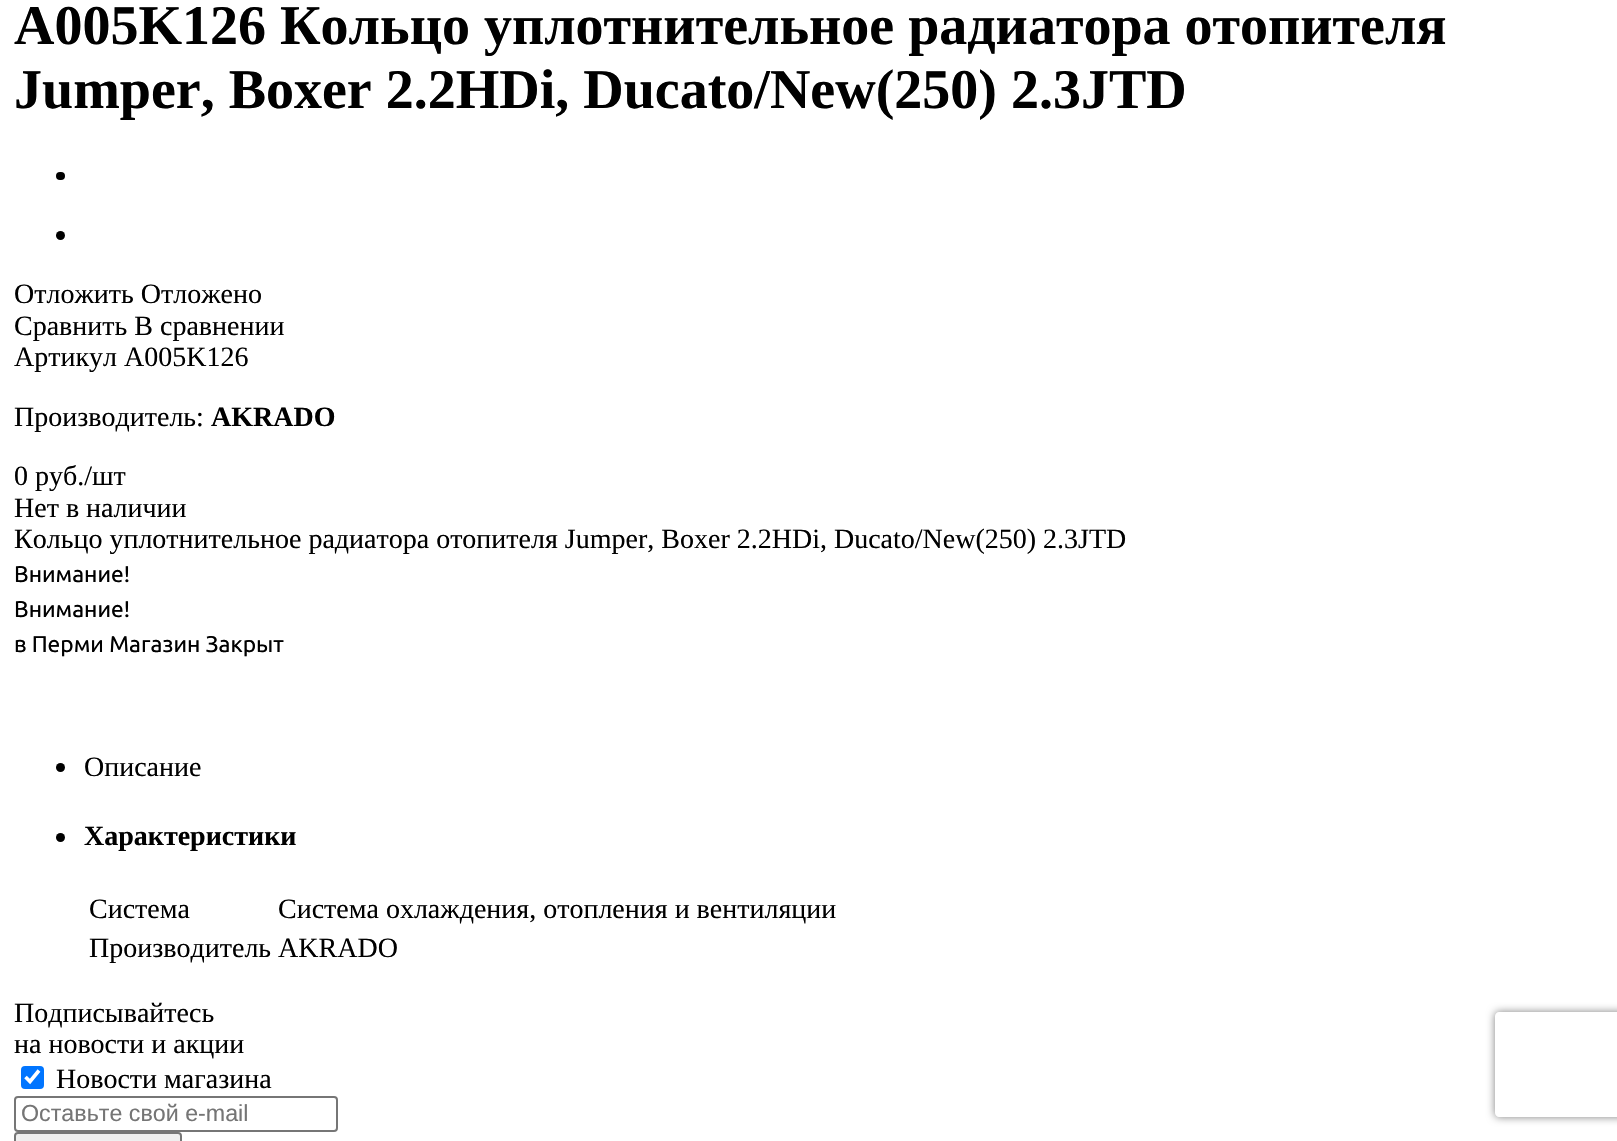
void draw(SkCanvas* canvas) {
	SkPaint paint;
	paint.setAntiAlias(true);
	auto svgPath = [&](const char* data, bool evenOdd = false) {
		SkPath result = *SkParsePath::FromSVGString(data);
		if (evenOdd) result.setFillType(SkPathFillType::kEvenOdd);
		return result;
	};
	canvas->clear(0xffffffff);
	SkFont f1(fontMgr->matchFamilyStyle("Liberation Serif", SkFontStyle::Bold()), 56);
	f1.setSubpixel(true);
	paint.setColor(0xff000000);
	canvas->drawString("A005K126 Кольцо уплотнительное радиатора отопителя", 14, 44, f1, paint);
	canvas->drawString("Jumper, Boxer 2.2HDi, Ducato/New(250) 2.3JTD", 14, 108, f1, paint);
	canvas->drawRoundRect(SkRect::MakeXYWH(56, 172, 9, 8), 4, 4, paint);
	canvas->drawCircle(60.5, 235.5, 4.5, paint);
	SkFont f2(fontMgr->matchFamilyStyle("Liberation Serif", SkFontStyle::Normal()), 28);
	f2.setSubpixel(true);
	canvas->drawString("Отложить Отложено", 14, 303, f2, paint);
	canvas->drawString("Сравнить В сравнении", 14, 335, f2, paint);
	canvas->drawString("Артикул A005K126", 14, 366, f2, paint);
	canvas->drawString("Производитель:", 14, 426, f2, paint);
	SkFont f3(fontMgr->matchFamilyStyle("Liberation Serif", SkFontStyle::Bold()), 28);
	f3.setSubpixel(true);
	canvas->drawString("AKRADO", 211, 426, f3, paint);
	canvas->drawString("0 руб./шт", 14, 485, f2, paint);
	canvas->drawString("Нет в наличии", 14, 517, f2, paint);
	canvas->drawString("Кольцо уплотнительное радиатора отопителя Jumper, Boxer 2.2HDi, Ducato/New(250) 2.3JTD", 14, 548, f2, paint);
	SkFont f4(fontMgr->matchFamilyStyle("Ubuntu", SkFontStyle::Normal()), 22.75);
	f4.setSubpixel(true);
	canvas->drawString("Внимание!", 14, 582, f4, paint);
	canvas->drawString("Внимание!", 14, 617, f4, paint);
	canvas->drawString("в Перми Магазин Закрыт", 14, 652, f4, paint);
	canvas->drawCircle(60.5, 767.5, 4.5, paint);
	canvas->drawString("Описание", 84, 776, f2, paint);
	canvas->drawCircle(60.5, 837.5, 4.5, paint);
	canvas->drawString("Характеристики", 84, 845, f3, paint);
	canvas->drawString("Система", 89, 918, f2, paint);
	canvas->drawString("Система охлаждения, отопления и вентиляции", 278, 918, f2, paint);
	canvas->drawString("Производитель AKRADO", 89, 957, f2, paint);
	canvas->drawString("Подписывайтесь", 14, 1022, f2, paint);
	canvas->drawString("на новости и акции", 14, 1053, f2, paint);
	paint.setColor(0xff0075ff);
	canvas->drawRoundRect(SkRect::MakeXYWH(21, 1066, 23, 23), 4, 4, paint);
	paint.setStroke(true);
	paint.setStrokeWidth(3.6);
	paint.setColor(0xffffffff);
	canvas->drawPath(svgPath("M25.5 1077L30 1081.5L39 1070.5"), paint);
	paint.setStroke(false);
	paint.setColor(0xff000000);
	canvas->drawString("Новости магазина", 56, 1088, f2, paint);
	paint.setStroke(true);
	paint.setStrokeWidth(2);
	paint.setColor(0xff767676);
	canvas->drawRoundRect(SkRect::MakeXYWH(15, 1097, 322, 34), 3, 3, paint);
	SkFont f5(fontMgr->matchFamilyStyle("Liberation Sans", SkFontStyle::Normal()), 23.25);
	f5.setSubpixel(true);
	paint.setStroke(false);
	paint.setColor(0xff757575);
	canvas->drawString("Оставьте свой e-mail", 21, 1121, f5, paint);
	paint.setColor(0xffefefef);
	canvas->drawRoundRect(SkRect::MakeXYWH(15, 1133, 166, 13), 3, 3, paint);
	paint.setStroke(true);
	paint.setColor(0xff767676);
	canvas->drawRoundRect(SkRect::MakeXYWH(15, 1133, 166, 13), 3, 3, paint);
	canvas->save();
	canvas->clipPath(svgPath("M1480 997H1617V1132H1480ZM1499 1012H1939C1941 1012 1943 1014 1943 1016V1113C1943 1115 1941 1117 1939 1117H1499C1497 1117 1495 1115 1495 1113V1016C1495 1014 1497 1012 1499 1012Z", true), true);
	paint.setStroke(false);
	paint.setColor(0xff808080);
	paint.setMaskFilter(SkMaskFilter::MakeBlur(kNormal_SkBlurStyle, 4.5));
	canvas->drawRoundRect(SkRect::MakeXYWH(1495, 1012, 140, 105), 4, 4, paint);
	paint.setMaskFilter(nullptr);
	canvas->restore();
}
